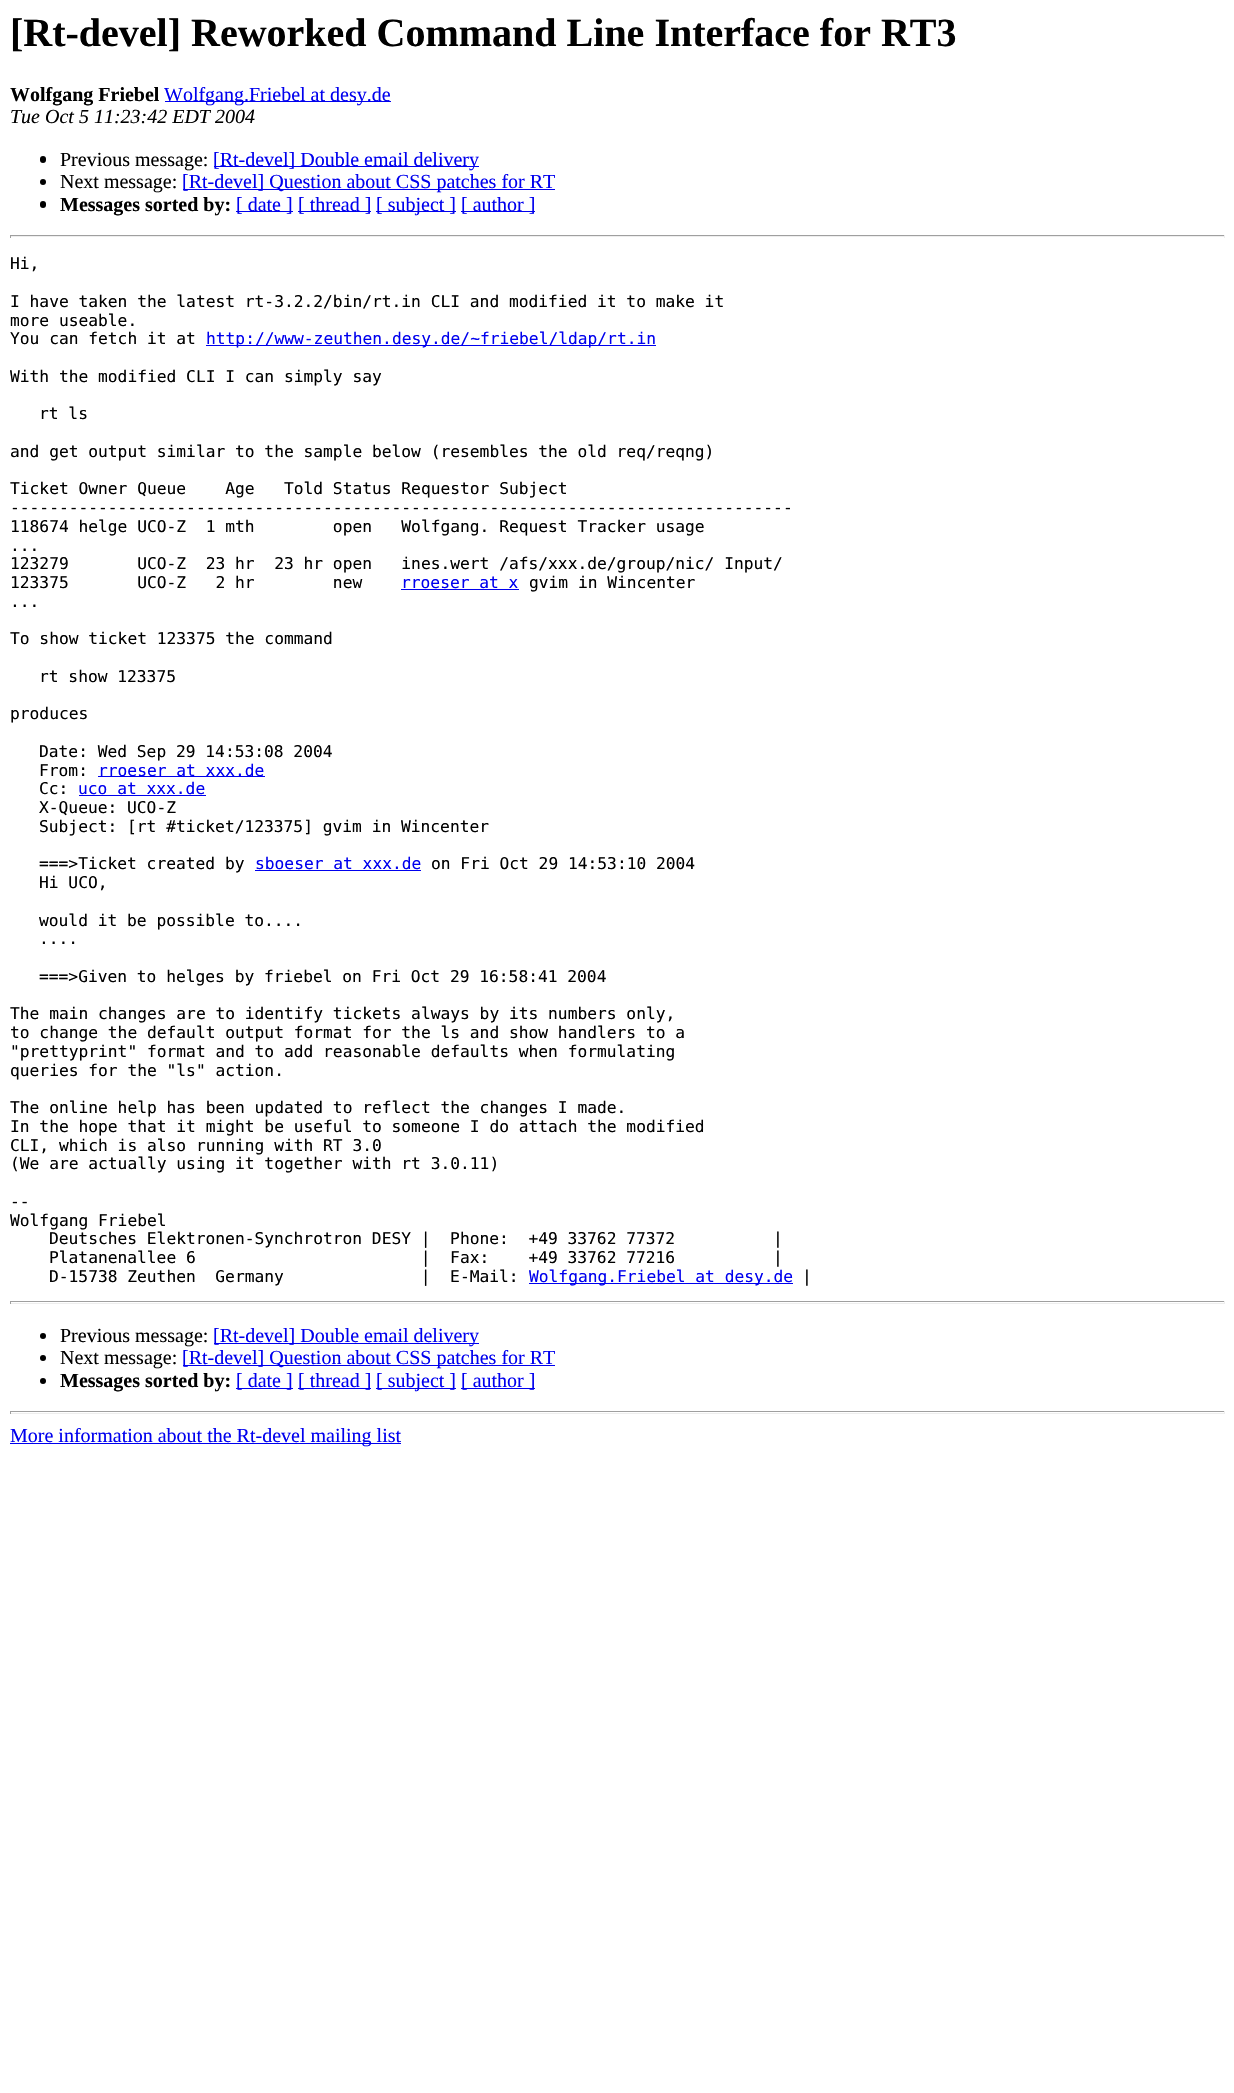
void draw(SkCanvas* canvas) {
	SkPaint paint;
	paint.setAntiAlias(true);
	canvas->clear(0xffffffff);
	SkFont f1(fontMgr->matchFamilyStyle("Liberation Serif", SkFontStyle::Bold()), 40);
	f1.setSubpixel(true);
	paint.setColor(0xff000000);
	canvas->drawString("[Rt-devel] Reworked Command Line Interface for RT3", 10, 46, f1, paint);
	SkFont f2(fontMgr->matchFamilyStyle("Liberation Serif", SkFontStyle::Bold()), 20);
	f2.setSubpixel(true);
	canvas->drawString("Wolfgang Friebel", 10, 101, f2, paint);
	paint.setColor(0xff0000ee);
	canvas->drawRect(SkRect::MakeXYWH(165, 101, 226, 1), paint);
	SkFont f3(fontMgr->matchFamilyStyle("Liberation Serif", SkFontStyle::Normal()), 20);
	f3.setSubpixel(true);
	canvas->drawString("Wolfgang.Friebel at desy.de", 164, 101, f3, paint);
	SkFont f4(fontMgr->matchFamilyStyle("Liberation Serif", SkFontStyle::Italic()), 20);
	f4.setSubpixel(true);
	paint.setColor(0xff000000);
	canvas->drawString("Tue Oct 5 11:23:42 EDT 2004", 10, 123, f4, paint);
	canvas->drawRoundRect(SkRect::MakeXYWH(40, 156, 6, 7), 3, 3, paint);
	canvas->drawString("Previous message:", 60, 166, f3, paint);
	paint.setColor(0xff0000ee);
	canvas->drawRect(SkRect::MakeXYWH(214, 166, 265, 1), paint);
	canvas->drawString("[Rt-devel] Double email delivery", 213, 166, f3, paint);
	paint.setColor(0xff000000);
	canvas->drawCircle(43, 182, 3, paint);
	canvas->drawString("Next message:", 60, 188, f3, paint);
	paint.setColor(0xff0000ee);
	canvas->drawRect(SkRect::MakeXYWH(183, 189, 372, 1), paint);
	canvas->drawString("[Rt-devel] Question about CSS patches for RT", 182, 188, f3, paint);
	paint.setColor(0xff000000);
	canvas->drawRoundRect(SkRect::MakeXYWH(40, 201, 6, 7), 3, 3, paint);
	canvas->drawString("Messages sorted by:", 60, 211, f2, paint);
	paint.setColor(0xff0000ee);
	canvas->drawRect(SkRect::MakeXYWH(236, 211, 57, 1), paint);
	canvas->drawString("[ date ]", 236, 211, f3, paint);
	canvas->drawRect(SkRect::MakeXYWH(298, 211, 73, 1), paint);
	canvas->drawString("[ thread ]", 298, 211, f3, paint);
	canvas->drawRect(SkRect::MakeXYWH(376, 211, 80, 1), paint);
	canvas->drawString("[ subject ]", 376, 211, f3, paint);
	canvas->drawRect(SkRect::MakeXYWH(461, 211, 74, 1), paint);
	canvas->drawString("[ author ]", 461, 211, f3, paint);
	paint.setColor(0xff9f9f9f);
	canvas->drawRect(SkRect::MakeXYWH(10, 235, 1215, 1), paint);
	paint.setColor(0xffeeeeee);
	canvas->drawRect(SkRect::MakeXYWH(1224, 235, 1, 3), paint);
	canvas->drawRect(SkRect::MakeXYWH(10, 236, 1215, 1), paint);
	paint.setColor(0xff9f9f9f);
	canvas->drawRect(SkRect::MakeXYWH(10, 235, 1, 3), paint);
	SkFont f5(fontMgr->matchFamilyStyle("DejaVu Sans Mono", SkFontStyle::Normal()), 16.25);
	f5.setSubpixel(true);
	paint.setColor(0xff000000);
	canvas->drawString("Hi,", 10, 269, f5, paint);
	canvas->drawString("I have taken the latest rt-3.2.2/bin/rt.in CLI and modified it to make it", 10, 307, f5, paint);
	canvas->drawString("more useable.", 10, 326, f5, paint);
	canvas->drawString("You can fetch it at", 10, 344, f5, paint);
	paint.setColor(0xff0000ee);
	canvas->drawRect(SkRect::MakeXYWH(206, 345, 450, 1), paint);
	canvas->drawString("http://www-zeuthen.desy.de/~friebel/ldap/rt.in", 206, 344, f5, paint);
	paint.setColor(0xff000000);
	canvas->drawString("With the modified CLI I can simply say", 10, 382, f5, paint);
	canvas->drawString("rt ls", 39, 419, f5, paint);
	canvas->drawString("and get output similar to the sample below (resembles the old req/reqng)", 10, 457, f5, paint);
	canvas->drawString("Ticket Owner Queue    Age   Told Status Requestor Subject", 10, 494, f5, paint);
	canvas->drawString("--------------------------------------------------------------------------------", 10, 513, f5, paint);
	canvas->drawString("118674 helge UCO-Z  1 mth        open   Wolfgang. Request Tracker usage", 10, 532, f5, paint);
	canvas->drawString("...", 10, 551, f5, paint);
	canvas->drawString("123279       UCO-Z  23 hr  23 hr open   ines.wert /afs/xxx.de/group/nic/ Input/", 10, 569, f5, paint);
	canvas->drawString("123375       UCO-Z   2 hr        new", 10, 588, f5, paint);
	paint.setColor(0xff0000ee);
	canvas->drawString("rroeser at x", 401, 588, f5, paint);
	canvas->drawRect(SkRect::MakeXYWH(401, 589, 118, 1), paint);
	paint.setColor(0xff000000);
	canvas->drawString("gvim in Wincenter", 529, 588, f5, paint);
	canvas->drawString("...", 10, 607, f5, paint);
	canvas->drawString("To show ticket 123375 the command", 10, 644, f5, paint);
	canvas->drawString("rt show 123375", 39, 682, f5, paint);
	canvas->drawString("produces", 10, 719, f5, paint);
	canvas->drawString("Date: Wed Sep 29 14:53:08 2004", 39, 757, f5, paint);
	canvas->drawString("From:", 39, 776, f5, paint);
	paint.setColor(0xff0000ee);
	canvas->drawRect(SkRect::MakeXYWH(98, 776, 167, 1), paint);
	canvas->drawString("rroeser at xxx.de", 98, 776, f5, paint);
	paint.setColor(0xff000000);
	canvas->drawString("Cc:", 39, 794, f5, paint);
	paint.setColor(0xff0000ee);
	canvas->drawString("uco at xxx.de", 78, 794, f5, paint);
	canvas->drawRect(SkRect::MakeXYWH(79, 795, 127, 1), paint);
	paint.setColor(0xff000000);
	canvas->drawString("X-Queue: UCO-Z", 39, 813, f5, paint);
	canvas->drawString("Subject: [rt #ticket/123375] gvim in Wincenter", 39, 832, f5, paint);
	canvas->drawString("===>Ticket created by", 39, 869, f5, paint);
	paint.setColor(0xff0000ee);
	canvas->drawString("sboeser at xxx.de", 255, 869, f5, paint);
	canvas->drawRect(SkRect::MakeXYWH(255, 870, 166, 1), paint);
	paint.setColor(0xff000000);
	canvas->drawString("on Fri Oct 29 14:53:10 2004", 431, 869, f5, paint);
	canvas->drawString("Hi UCO,", 39, 888, f5, paint);
	canvas->drawString("would it be possible to....", 39, 926, f5, paint);
	canvas->drawString("....", 39, 944, f5, paint);
	canvas->drawString("===>Given to helges by friebel on Fri Oct 29 16:58:41 2004", 39, 982, f5, paint);
	canvas->drawString("The main changes are to identify tickets always by its numbers only,", 10, 1019, f5, paint);
	canvas->drawString("to change the default output format for the ls and show handlers to a", 10, 1038, f5, paint);
	canvas->drawString("\"prettyprint\" format and to add reasonable defaults when formulating", 10, 1057, f5, paint);
	canvas->drawString("queries for the \"ls\" action.", 10, 1076, f5, paint);
	canvas->drawString("The online help has been updated to reflect the changes I made.", 10, 1113, f5, paint);
	canvas->drawString("In the hope that it might be useful to someone I do attach the modified", 10, 1132, f5, paint);
	canvas->drawString("CLI, which is also running with RT 3.0", 10, 1151, f5, paint);
	canvas->drawString("(We are actually using it together with rt 3.0.11)", 10, 1169, f5, paint);
	canvas->drawString("--", 10, 1207, f5, paint);
	canvas->drawString("Wolfgang Friebel", 10, 1226, f5, paint);
	canvas->drawString("Deutsches Elektronen-Synchrotron DESY |  Phone:  +49 33762 77372          |", 49, 1244, f5, paint);
	canvas->drawString("Platanenallee 6                       |  Fax:    +49 33762 77216          |", 49, 1263, f5, paint);
	canvas->drawString("D-15738 Zeuthen  Germany              |  E-Mail:", 49, 1282, f5, paint);
	paint.setColor(0xff0000ee);
	canvas->drawRect(SkRect::MakeXYWH(529, 1283, 264, 1), paint);
	canvas->drawString("Wolfgang.Friebel at desy.de", 529, 1282, f5, paint);
	paint.setColor(0xff000000);
	canvas->drawString("|", 802, 1282, f5, paint);
	paint.setColor(0xff9f9f9f);
	canvas->drawRect(SkRect::MakeXYWH(10, 1301, 1215, 1), paint);
	paint.setColor(0xffeeeeee);
	canvas->drawRect(SkRect::MakeXYWH(1224, 1301, 1, 3), paint);
	canvas->drawRect(SkRect::MakeXYWH(10, 1303, 1215, 1), paint);
	paint.setColor(0xff9f9f9f);
	canvas->drawRect(SkRect::MakeXYWH(10, 1301, 1, 3), paint);
	paint.setColor(0xff000000);
	canvas->drawCircle(43, 1336, 3, paint);
	canvas->drawString("Previous message:", 60, 1342, f3, paint);
	paint.setColor(0xff0000ee);
	canvas->drawRect(SkRect::MakeXYWH(214, 1343, 265, 1), paint);
	canvas->drawString("[Rt-devel] Double email delivery", 213, 1342, f3, paint);
	paint.setColor(0xff000000);
	canvas->drawCircle(43, 1358, 3, paint);
	canvas->drawString("Next message:", 60, 1364, f3, paint);
	paint.setColor(0xff0000ee);
	canvas->drawRect(SkRect::MakeXYWH(183, 1365, 372, 1), paint);
	canvas->drawString("[Rt-devel] Question about CSS patches for RT", 182, 1364, f3, paint);
	paint.setColor(0xff000000);
	canvas->drawCircle(43, 1381, 3, paint);
	canvas->drawString("Messages sorted by:", 60, 1387, f2, paint);
	paint.setColor(0xff0000ee);
	canvas->drawRect(SkRect::MakeXYWH(236, 1388, 57, 1), paint);
	canvas->drawString("[ date ]", 236, 1387, f3, paint);
	canvas->drawRect(SkRect::MakeXYWH(298, 1388, 73, 1), paint);
	canvas->drawString("[ thread ]", 298, 1387, f3, paint);
	canvas->drawRect(SkRect::MakeXYWH(376, 1388, 80, 1), paint);
	canvas->drawString("[ subject ]", 376, 1387, f3, paint);
	canvas->drawRect(SkRect::MakeXYWH(461, 1388, 74, 1), paint);
	canvas->drawString("[ author ]", 461, 1387, f3, paint);
	paint.setColor(0xff9f9f9f);
	canvas->drawRect(SkRect::MakeXYWH(10, 1411, 1215, 1), paint);
	paint.setColor(0xffeeeeee);
	canvas->drawRect(SkRect::MakeXYWH(1224, 1411, 1, 3), paint);
	canvas->drawRect(SkRect::MakeXYWH(10, 1413, 1215, 1), paint);
	paint.setColor(0xff9f9f9f);
	canvas->drawRect(SkRect::MakeXYWH(10, 1411, 1, 3), paint);
	paint.setColor(0xff0000ee);
	canvas->drawRect(SkRect::MakeXYWH(10, 1443, 391, 1), paint);
	canvas->drawString("More information about the Rt-devel mailing list", 10, 1442, f3, paint);
}
